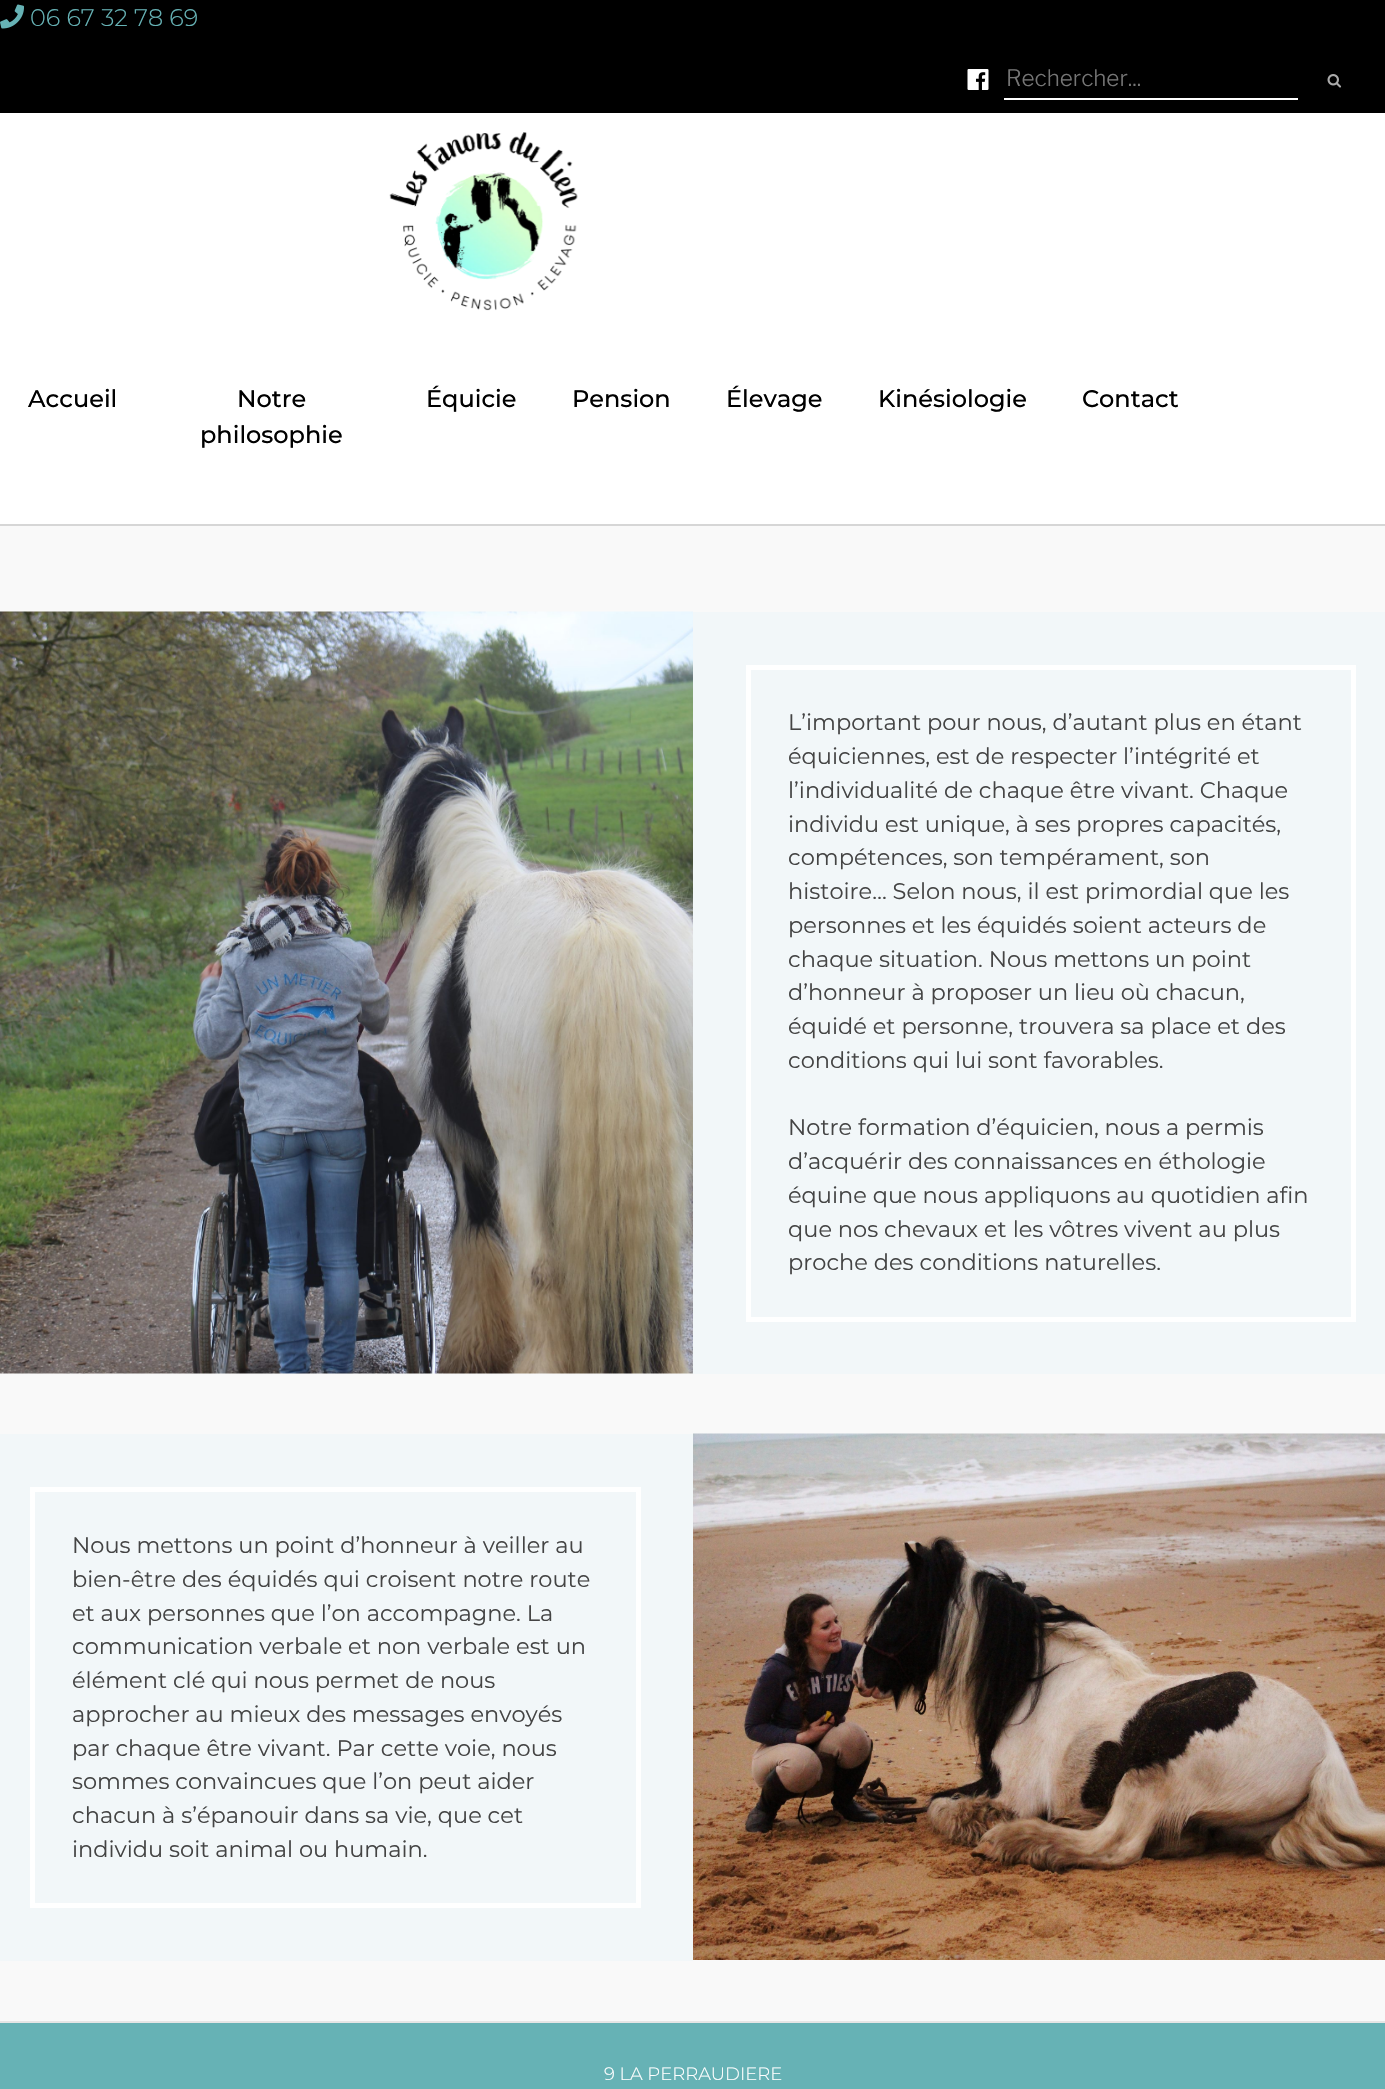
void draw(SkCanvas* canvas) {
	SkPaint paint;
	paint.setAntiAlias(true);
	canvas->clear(0xfff9f9f9);
	paint.setColor(0xffffffff);
	canvas->drawRect(SkRect::MakeXYWH(0, 113, 1385, 411), paint);
	paint.setColor(0xffd6d6d6);
	canvas->drawRect(SkRect::MakeXYWH(0, 524, 1385, 2), paint);
	paint.setColor(0xff000000);
	canvas->drawRect(SkRect::MakeXYWH(0, 0, 1385, 113), paint);
	canvas->drawImageRect(SkImages::DeferredFromEncodedData(SkData::MakeFromFileName("img1.png")), SkRect::MakeXYWH(0, 4, 24, 25), SkSamplingOptions());
	SkFont f1(fontMgr->matchFamilyStyle("Montserrat", SkFontStyle(300, SkFontStyle::kNormal_Width, SkFontStyle::kUpright_Slant)), 24);
	f1.setSubpixel(true);
	paint.setColor(0xff66b2b5);
	canvas->drawString("06 67 32 78 69", 30, 26, f1, paint);
	canvas->drawImageRect(SkImages::DeferredFromEncodedData(SkData::MakeFromFileName("img2.png")), SkRect::MakeXYWH(967, 69, 22, 21), SkSamplingOptions());
	paint.setColor(0xffffffff);
	canvas->drawRect(SkRect::MakeXYWH(1004, 98, 294, 2), paint);
	SkFont f2(fontMgr->matchFamilyStyle("Libre Franklin", SkFontStyle(300, SkFontStyle::kNormal_Width, SkFontStyle::kUpright_Slant)), 22.5);
	f2.setSubpixel(true);
	paint.setColor(0xff757575);
	canvas->drawString("Rechercher...", 1006, 86, f2, paint);
	canvas->drawImageRect(SkImages::DeferredFromEncodedData(SkData::MakeFromFileName("img3.png")), SkRect::MakeXYWH(1327, 74, 15, 14), SkSamplingOptions());
	canvas->drawImageRect(SkImages::DeferredFromEncodedData(SkData::MakeFromFileName("img4.png")), SkRect::MakeXYWH(389, 132, 189, 179), SkSamplingOptions());
	SkFont f3(fontMgr->matchFamilyStyle("Montserrat", SkFontStyle(500, SkFontStyle::kNormal_Width, SkFontStyle::kUpright_Slant)), 24);
	f3.setSubpixel(true);
	paint.setColor(0xff000000);
	canvas->drawString("Accueil", 28, 407, f3, paint);
	canvas->drawString("Notre", 237, 407, f3, paint);
	canvas->drawString("philosophie", 200, 443, f3, paint);
	canvas->drawString("Équicie", 426, 407, f3, paint);
	canvas->drawString("Pension", 572, 407, f3, paint);
	canvas->drawString("Élevage", 726, 407, f3, paint);
	canvas->drawString("Kinésiologie", 878, 407, f3, paint);
	canvas->drawString("Contact", 1082, 407, f3, paint);
	canvas->drawImageRect(SkImages::DeferredFromEncodedData(SkData::MakeFromFileName("img5.png")), SkRect::MakeXYWH(0, 611, 693, 763), SkSamplingOptions());
	paint.setColor(0xfff2f7f9);
	canvas->drawRect(SkRect::MakeXYWH(693, 612, 692, 762), paint);
	paint.setStroke(true);
	paint.setStrokeWidth(5);
	paint.setColor(0xffffffff);
	canvas->drawRect(SkRect::MakeXYWH(748.5, 667.5, 605, 652), paint);
	SkFont f4(fontMgr->matchFamilyStyle("Montserrat", SkFontStyle::Normal()), 22.5);
	f4.setSubpixel(true);
	paint.setStroke(false);
	paint.setColor(0xff444444);
	canvas->drawString("L’important pour nous, d’autant plus en étant", 788, 730, f4, paint);
	canvas->drawString("équiciennes, est de respecter l’intégrité et", 788, 764, f4, paint);
	canvas->drawString("l’individualité de chaque être vivant. Chaque", 788, 798, f4, paint);
	canvas->drawString("individu est unique, à ses propres capacités,", 788, 832, f4, paint);
	canvas->drawString("compétences, son tempérament, son", 788, 865, f4, paint);
	canvas->drawString("histoire… Selon nous, il est primordial que les", 788, 899, f4, paint);
	canvas->drawString("personnes et les équidés soient acteurs de", 788, 933, f4, paint);
	canvas->drawString("chaque situation. Nous mettons un point", 788, 967, f4, paint);
	canvas->drawString("d’honneur à proposer un lieu où chacun,", 788, 1000, f4, paint);
	canvas->drawString("équidé et personne, trouvera sa place et des", 788, 1034, f4, paint);
	canvas->drawString("conditions qui lui sont favorables.", 788, 1068, f4, paint);
	canvas->drawString("Notre formation d’équicien, nous a permis", 788, 1135, f4, paint);
	canvas->drawString("d’acquérir des connaissances en éthologie", 788, 1169, f4, paint);
	canvas->drawString("équine que nous appliquons au quotidien afin", 788, 1203, f4, paint);
	canvas->drawString("que nos chevaux et les vôtres vivent au plus", 788, 1237, f4, paint);
	canvas->drawString("proche des conditions naturelles.", 788, 1270, f4, paint);
	paint.setColor(0xfff2f7f9);
	canvas->drawRect(SkRect::MakeXYWH(0, 1434, 693, 527), paint);
	paint.setStroke(true);
	paint.setColor(0xffffffff);
	canvas->drawRect(SkRect::MakeXYWH(32.5, 1489.5, 606, 416), paint);
	paint.setStroke(false);
	paint.setColor(0xff444444);
	canvas->drawString("Nous mettons un point d’honneur à veiller au", 72, 1553, f4, paint);
	canvas->drawString("bien-être des équidés qui croisent notre route", 72, 1587, f4, paint);
	canvas->drawString("et aux personnes que l’on accompagne. La", 72, 1621, f4, paint);
	canvas->drawString("communication verbale et non verbale est un", 72, 1654, f4, paint);
	canvas->drawString("élément clé qui nous permet de nous", 72, 1688, f4, paint);
	canvas->drawString("approcher au mieux des messages envoyés", 72, 1722, f4, paint);
	canvas->drawString("par chaque être vivant. Par cette voie, nous", 72, 1756, f4, paint);
	canvas->drawString("sommes convaincues que l’on peut aider", 72, 1789, f4, paint);
	canvas->drawString("chacun à s’épanouir dans sa vie, que cet", 72, 1823, f4, paint);
	canvas->drawString("individu soit animal ou humain.", 72, 1857, f4, paint);
	canvas->drawImageRect(SkImages::DeferredFromEncodedData(SkData::MakeFromFileName("img6.png")), SkRect::MakeXYWH(693, 1433, 692, 527), SkSamplingOptions());
	paint.setColor(0xff66b2b5);
	canvas->drawRect(SkRect::MakeXYWH(0, 2023, 1385, 66), paint);
	paint.setColor(0xffe5e5e5);
	canvas->drawRect(SkRect::MakeXYWH(0, 2021, 1385, 2), paint);
	SkFont f5(fontMgr->matchFamilyStyle("Montserrat", SkFontStyle(300, SkFontStyle::kNormal_Width, SkFontStyle::kUpright_Slant)), 18);
	f5.setSubpixel(true);
	paint.setColor(0xffffffff);
	canvas->drawString("9 LA PERRAUDIERE", 604, 2080, f5, paint);
}
